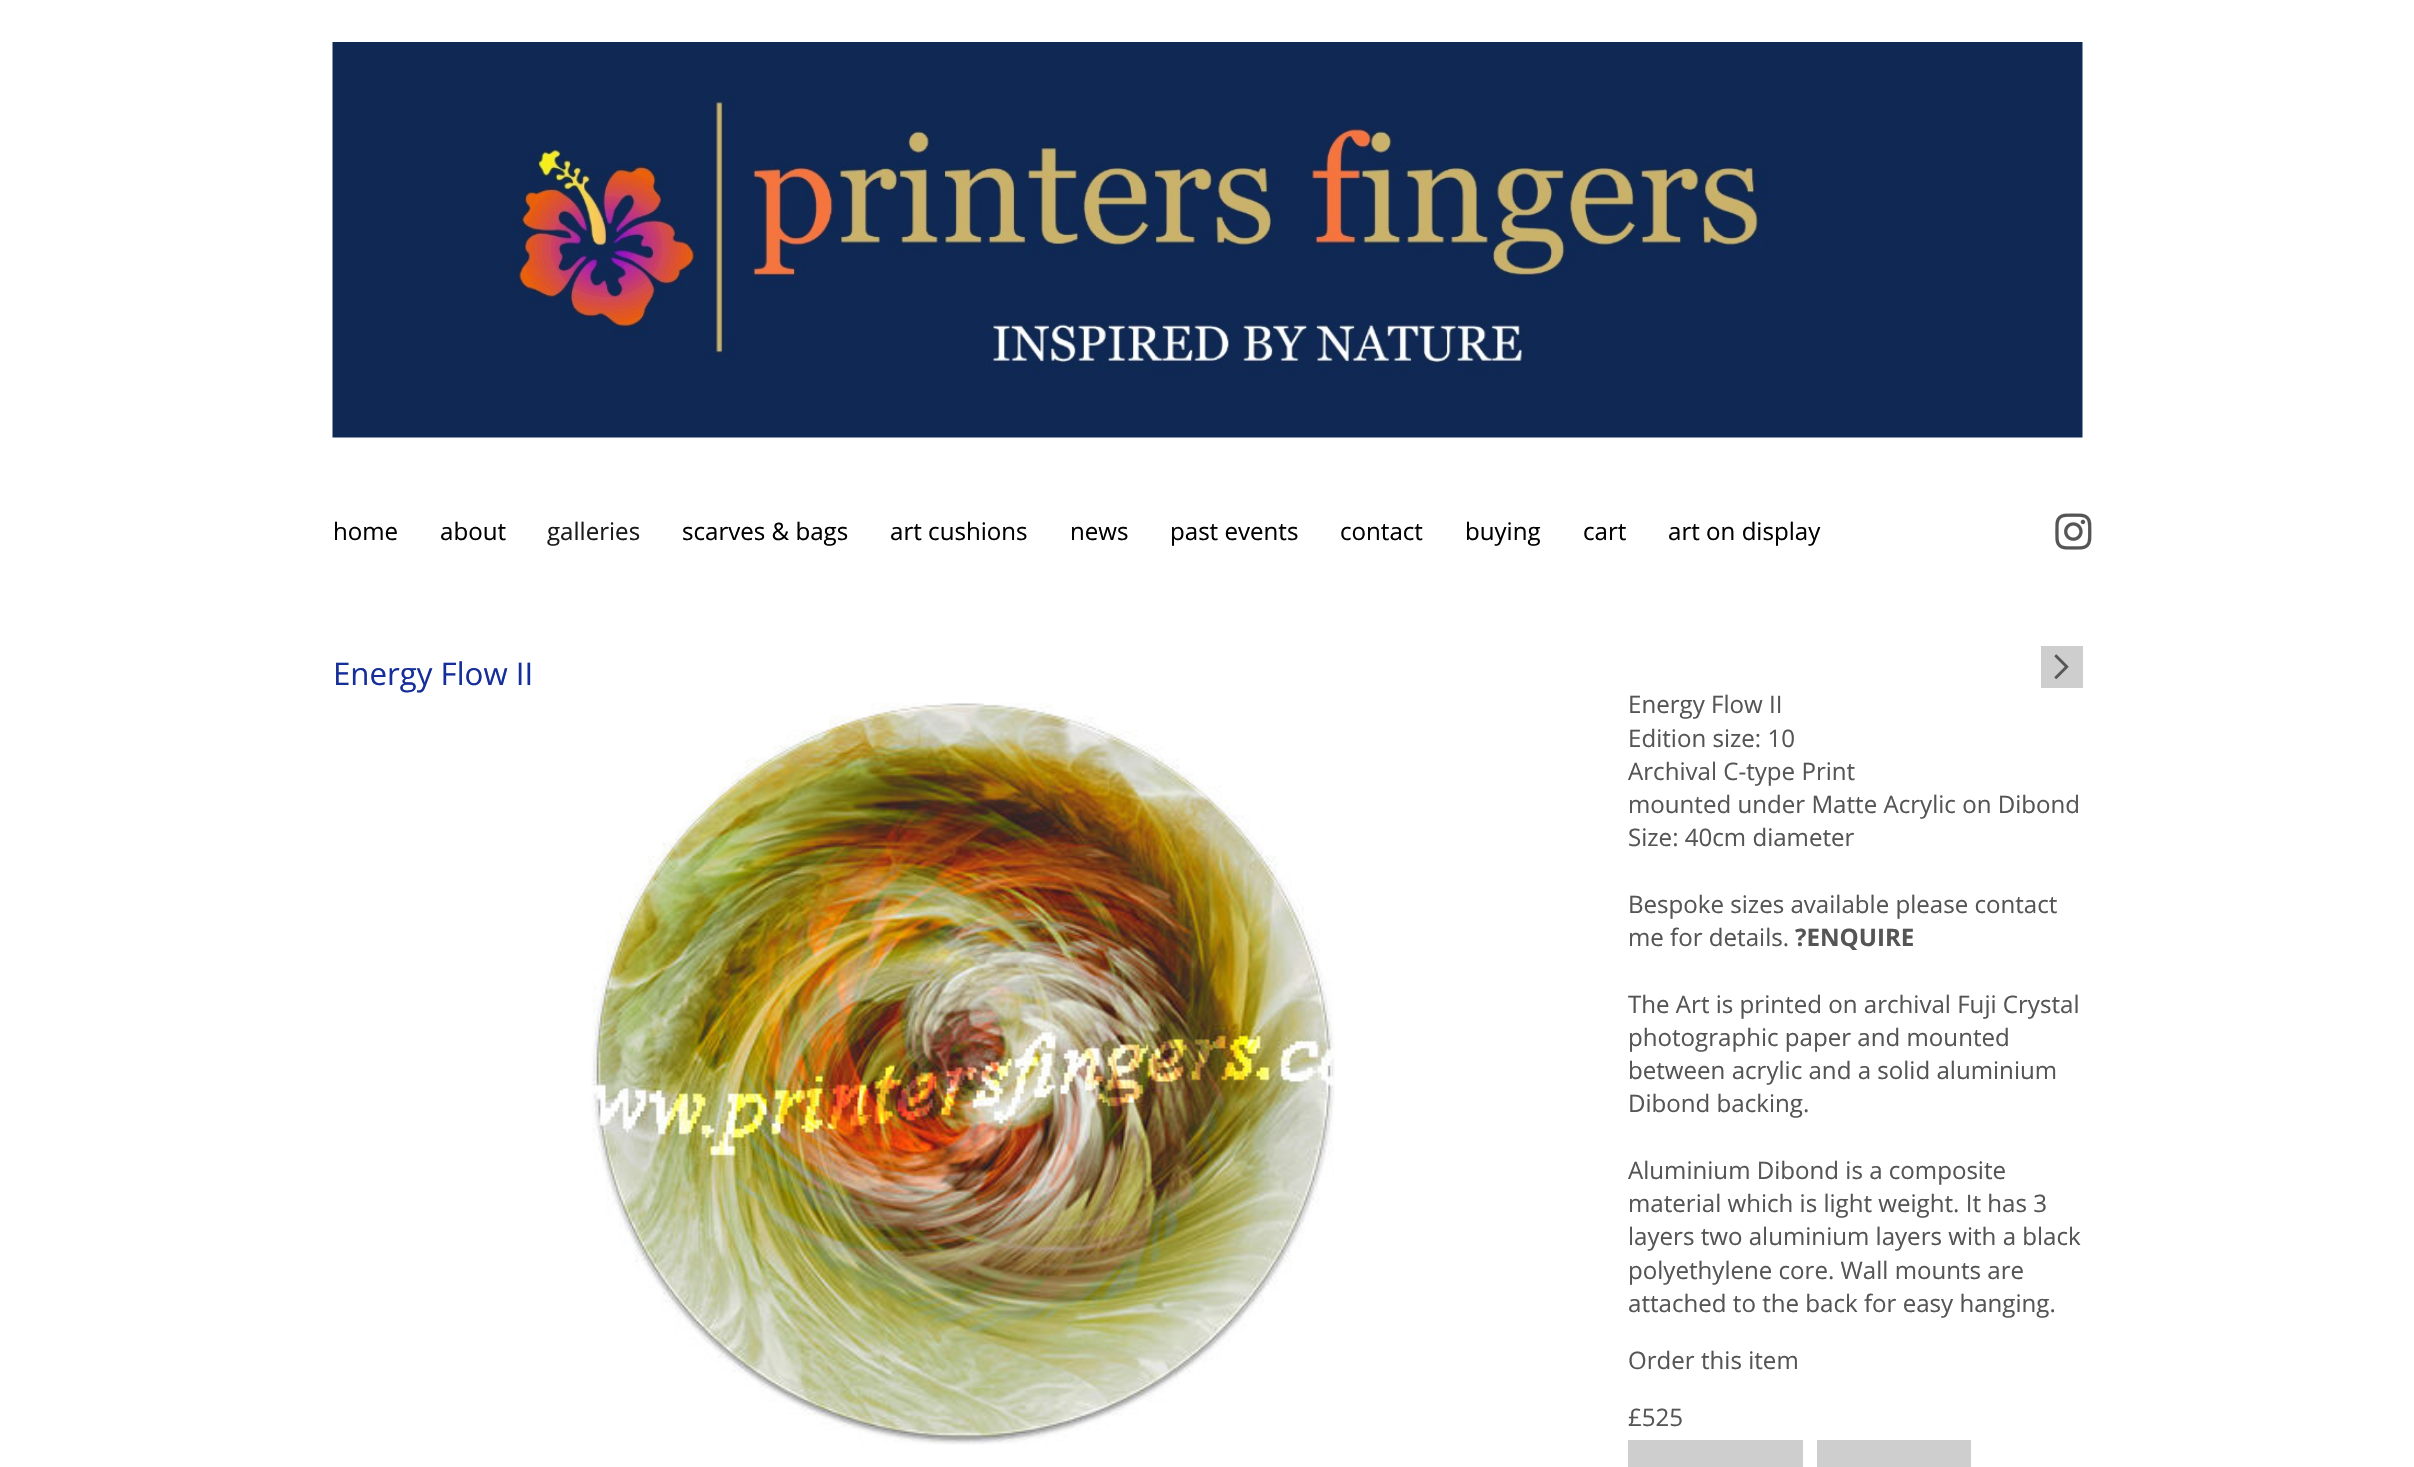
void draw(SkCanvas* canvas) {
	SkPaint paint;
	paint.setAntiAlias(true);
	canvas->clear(0xffffffff);
	canvas->drawImageRect(SkImages::DeferredFromEncodedData(SkData::MakeFromFileName("img1.png")), SkRect::MakeXYWH(332, 42, 1751, 396), SkSamplingOptions());
	SkFont f1(fontMgr->matchFamilyStyle("Open Sans", SkFontStyle::Normal()), 24.1);
	f1.setSubpixel(true);
	paint.setColor(0xff000000);
	canvas->drawString("home", 333, 540, f1, paint);
	canvas->drawString("about", 440, 540, f1, paint);
	paint.setColor(0xff1c1a1a);
	canvas->drawString("galleries", 547, 540, f1, paint);
	paint.setColor(0xff000000);
	canvas->drawString("scarves & bags", 682, 540, f1, paint);
	canvas->drawString("art cushions", 890, 540, f1, paint);
	canvas->drawString("news", 1070, 540, f1, paint);
	canvas->drawString("past events", 1170, 540, f1, paint);
	canvas->drawString("contact", 1340, 540, f1, paint);
	canvas->drawString("buying", 1465, 540, f1, paint);
	canvas->drawString("cart", 1583, 540, f1, paint);
	canvas->drawString("art on display", 1668, 540, f1, paint);
	canvas->drawImageRect(SkImages::DeferredFromEncodedData(SkData::MakeFromFileName("img2.png")), SkRect::MakeXYWH(2055, 513, 37, 37), SkSamplingOptions());
	SkFont f2(fontMgr->matchFamilyStyle("Open Sans", SkFontStyle::Normal()), 31.25);
	f2.setSubpixel(true);
	paint.setColor(0xff162e99);
	canvas->drawString("Energy Flow II", 333, 685, f2, paint);
	canvas->drawImageRect(SkImages::DeferredFromEncodedData(SkData::MakeFromFileName("img3.png")), SkRect::MakeXYWH(591, 702, 744, 743), SkSamplingOptions());
	paint.setColor(0xffcecece);
	canvas->drawRect(SkRect::MakeXYWH(2041, 646, 42, 42), paint);
	canvas->drawImageRect(SkImages::DeferredFromEncodedData(SkData::MakeFromFileName("img4.png")), SkRect::MakeXYWH(2054, 654, 15, 25), SkSamplingOptions());
	paint.setColor(0xff555555);
	canvas->drawString("Energy Flow II", 1628, 713, f1, paint);
	canvas->drawString("Edition size: 10", 1628, 747, f1, paint);
	canvas->drawString("Archival C-type Print", 1628, 780, f1, paint);
	canvas->drawString("mounted under Matte Acrylic on Dibond", 1628, 813, f1, paint);
	canvas->drawString("Size: 40cm diameter", 1628, 846, f1, paint);
	canvas->drawString("Bespoke sizes available please contact", 1628, 913, f1, paint);
	canvas->drawString("me for details.", 1628, 946, f1, paint);
	SkFont f3(fontMgr->matchFamilyStyle("Open Sans", SkFontStyle::Bold()), 24.1);
	f3.setSubpixel(true);
	canvas->drawString("?ENQUIRE", 1795, 946, f3, paint);
	canvas->drawString("The Art is printed on archival Fuji Crystal", 1628, 1013, f1, paint);
	canvas->drawString("photographic paper and mounted", 1628, 1046, f1, paint);
	canvas->drawString("between acrylic and a solid aluminium", 1628, 1079, f1, paint);
	canvas->drawString("Dibond backing.", 1628, 1112, f1, paint);
	canvas->drawString("Aluminium Dibond is a composite", 1628, 1179, f1, paint);
	canvas->drawString("material which is light weight. It has 3", 1628, 1212, f1, paint);
	canvas->drawString("layers two aluminium layers with a black", 1628, 1245, f1, paint);
	canvas->drawString("polyethylene core. Wall mounts are", 1628, 1279, f1, paint);
	canvas->drawString("attached to the back for easy hanging.", 1628, 1312, f1, paint);
	canvas->drawString("Order this item", 1628, 1369, f1, paint);
	canvas->drawString("£525", 1628, 1426, f1, paint);
	paint.setColor(0xffcecece);
	canvas->drawRect(SkRect::MakeXYWH(1628, 1440, 175, 27), paint);
	canvas->drawRect(SkRect::MakeXYWH(1817, 1440, 154, 27), paint);
}
